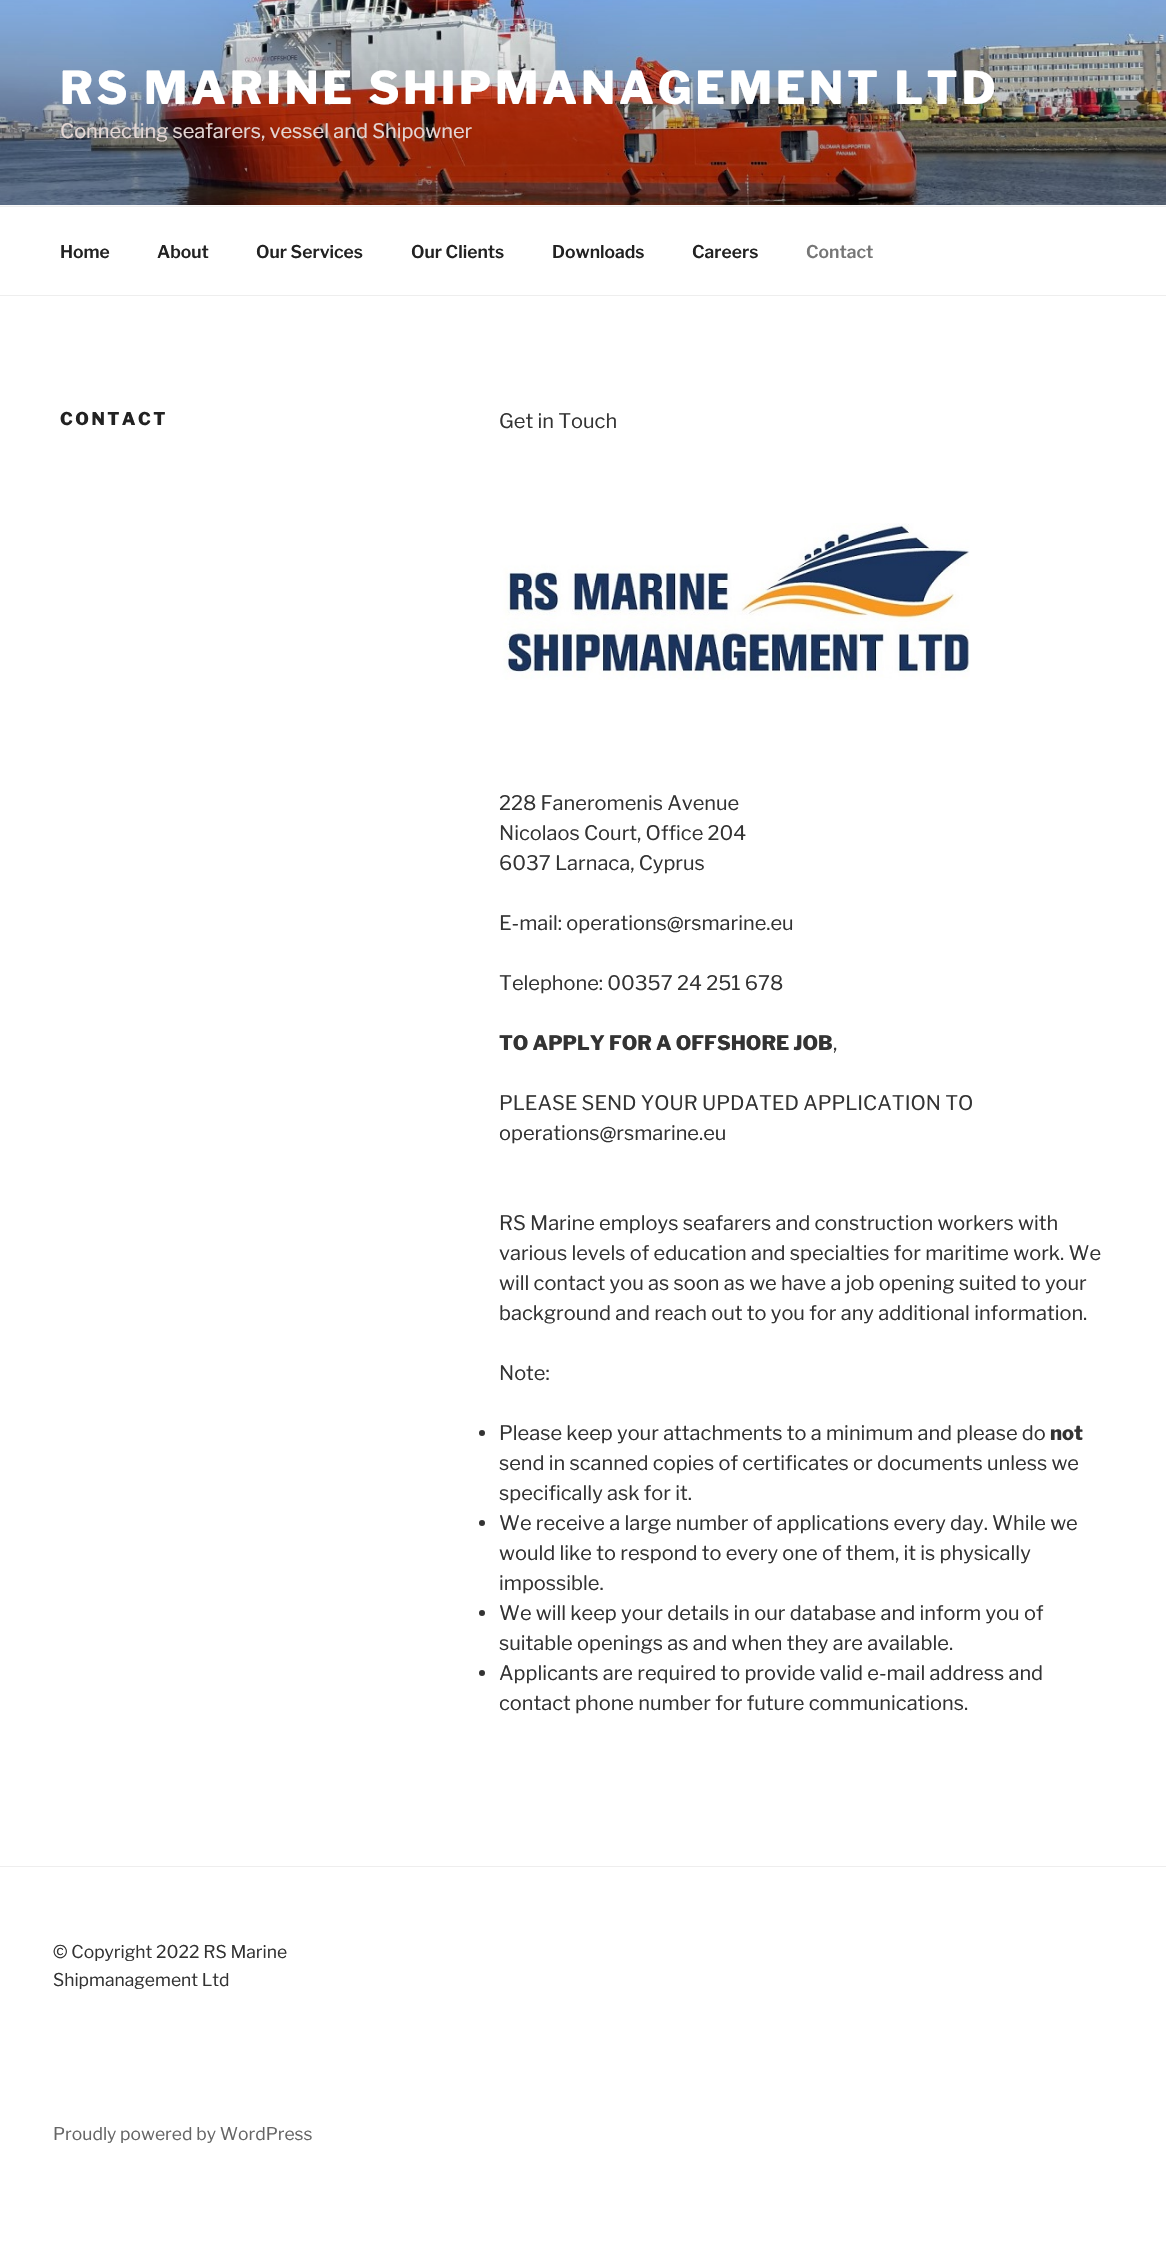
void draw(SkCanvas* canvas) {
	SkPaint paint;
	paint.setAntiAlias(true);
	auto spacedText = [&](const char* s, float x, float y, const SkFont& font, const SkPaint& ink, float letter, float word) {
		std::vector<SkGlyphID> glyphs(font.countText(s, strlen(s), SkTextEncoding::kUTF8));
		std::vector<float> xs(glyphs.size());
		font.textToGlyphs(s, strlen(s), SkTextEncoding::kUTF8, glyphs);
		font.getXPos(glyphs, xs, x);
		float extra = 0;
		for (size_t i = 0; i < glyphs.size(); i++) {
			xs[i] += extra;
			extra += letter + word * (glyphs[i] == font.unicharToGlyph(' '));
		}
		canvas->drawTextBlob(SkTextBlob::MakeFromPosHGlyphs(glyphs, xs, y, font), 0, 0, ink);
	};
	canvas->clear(0xffffffff);
	paint.setColor(0xfffafafa);
	canvas->drawRect(SkRect::MakeXYWH(0, 205, 1166, 1), paint);
	canvas->drawImageRect(SkImages::DeferredFromEncodedData(SkData::MakeFromFileName("img1.png")), SkRect::MakeXYWH(0, 0, 1166, 205), SkSamplingOptions());
	SkFont f1(fontMgr->matchFamilyStyle("Libre Franklin", SkFontStyle(100, SkFontStyle::kNormal_Width, SkFontStyle::kUpright_Slant)), 45);
	f1.setSubpixel(true);
	paint.setColor(0xffffffff);
	spacedText("RS MARINE SHIPMANAGEMENT LTD", 60, 104, f1, paint, 3.6, 0);
	SkFont f2(fontMgr->matchFamilyStyle("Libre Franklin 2", SkFontStyle(100, SkFontStyle::kNormal_Width, SkFontStyle::kUpright_Slant)), 20);
	f2.setSubpixel(true);
	paint.setColor(0xffe4d7d5);
	canvas->drawString("Connecting seafarers, vessel and Shipowner", 60, 138, f2, paint);
	paint.setColor(0xffeeeeee);
	canvas->drawRect(SkRect::MakeXYWH(0, 206, 1166, 1), paint);
	canvas->drawRect(SkRect::MakeXYWH(0, 295, 1166, 1), paint);
	SkFont f3(fontMgr->matchFamilyStyle("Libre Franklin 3", SkFontStyle(100, SkFontStyle::kNormal_Width, SkFontStyle::kUpright_Slant)), 17.5);
	f3.setSubpixel(true);
	paint.setColor(0xff222222);
	canvas->drawString("Home", 60, 258, f3, paint);
	canvas->drawString("About", 157, 258, f3, paint);
	canvas->drawString("Our Services", 256, 258, f3, paint);
	canvas->drawString("Our Clients", 411, 258, f3, paint);
	canvas->drawString("Downloads", 552, 258, f3, paint);
	canvas->drawString("Careers", 692, 258, f3, paint);
	paint.setColor(0xff767676);
	canvas->drawString("Contact", 806, 258, f3, paint);
	SkFont f4(fontMgr->matchFamilyStyle("Libre Franklin", SkFontStyle(100, SkFontStyle::kNormal_Width, SkFontStyle::kUpright_Slant)), 17.5);
	f4.setSubpixel(true);
	paint.setColor(0xff222222);
	spacedText("CONTACT", 60, 425, f4, paint, 2.5, 0);
	paint.setColor(0xff333333);
	canvas->drawString("Get in Touch", 499, 428, f2, paint);
	canvas->drawImageRect(SkImages::DeferredFromEncodedData(SkData::MakeFromFileName("img2.png")), SkRect::MakeXYWH(500, 523, 470, 157), SkSamplingOptions());
	canvas->drawString("228 Faneromenis Avenue", 499, 810, f2, paint);
	canvas->drawString("Nicolaos Court, Office 204", 499, 840, f2, paint);
	canvas->drawString("6037 Larnaca, Cyprus", 499, 870, f2, paint);
	canvas->drawString("E-mail: operations@rsmarine.eu", 499, 930, f2, paint);
	canvas->drawString("Telephone: 00357 24 251 678", 499, 990, f2, paint);
	SkFont f5(fontMgr->matchFamilyStyle("Libre Franklin", SkFontStyle(100, SkFontStyle::kNormal_Width, SkFontStyle::kUpright_Slant)), 20);
	f5.setSubpixel(true);
	canvas->drawString("TO APPLY FOR A OFFSHORE JOB", 499, 1050, f5, paint);
	canvas->drawString(",", 833, 1050, f2, paint);
	canvas->drawString("PLEASE SEND YOUR UPDATED APPLICATION TO", 499, 1110, f2, paint);
	canvas->drawString("operations@rsmarine.eu", 499, 1140, f2, paint);
	canvas->drawString("RS Marine employs seafarers and construction workers with", 499, 1230, f2, paint);
	canvas->drawString("various levels of education and specialties for maritime work. We", 499, 1260, f2, paint);
	canvas->drawString("will contact you as soon as we have a job opening suited to your", 499, 1290, f2, paint);
	canvas->drawString("background and reach out to you for any additional information.", 499, 1320, f2, paint);
	canvas->drawString("Note:", 499, 1380, f2, paint);
	canvas->drawCircle(482, 1433, 3, paint);
	canvas->drawString("Please keep your attachments to a minimum and please do", 499, 1440, f2, paint);
	canvas->drawString("not", 1050, 1440, f5, paint);
	canvas->drawString("send in scanned copies of certificates or documents unless we", 499, 1470, f2, paint);
	canvas->drawString("specifically ask for it.", 499, 1500, f2, paint);
	canvas->drawCircle(482, 1523, 3, paint);
	canvas->drawString("We receive a large number of applications every day. While we", 499, 1530, f2, paint);
	canvas->drawString("would like to respond to every one of them, it is physically", 499, 1560, f2, paint);
	canvas->drawString("impossible.", 499, 1590, f2, paint);
	canvas->drawCircle(482, 1613, 3, paint);
	canvas->drawString("We will keep your details in our database and inform you of", 499, 1620, f2, paint);
	canvas->drawString("suitable openings as and when they are available.", 499, 1650, f2, paint);
	canvas->drawCircle(482, 1673, 3, paint);
	canvas->drawString("Applicants are required to provide valid e-mail address and", 499, 1680, f2, paint);
	canvas->drawString("contact phone number for future communications.", 499, 1710, f2, paint);
	paint.setColor(0xffeeeeee);
	canvas->drawRect(SkRect::MakeXYWH(0, 1866, 1166, 1), paint);
	SkFont f6(fontMgr->matchFamilyStyle("Libre Franklin 2", SkFontStyle(100, SkFontStyle::kNormal_Width, SkFontStyle::kUpright_Slant)), 17.5);
	f6.setSubpixel(true);
	paint.setColor(0xff333333);
	canvas->drawString("© Copyright 2022 RS Marine", 53, 1958, f6, paint);
	canvas->drawString("Shipmanagement Ltd", 53, 1986, f6, paint);
	paint.setColor(0xff666666);
	canvas->drawString("Proudly powered by WordPress", 53, 2140, f6, paint);
}
